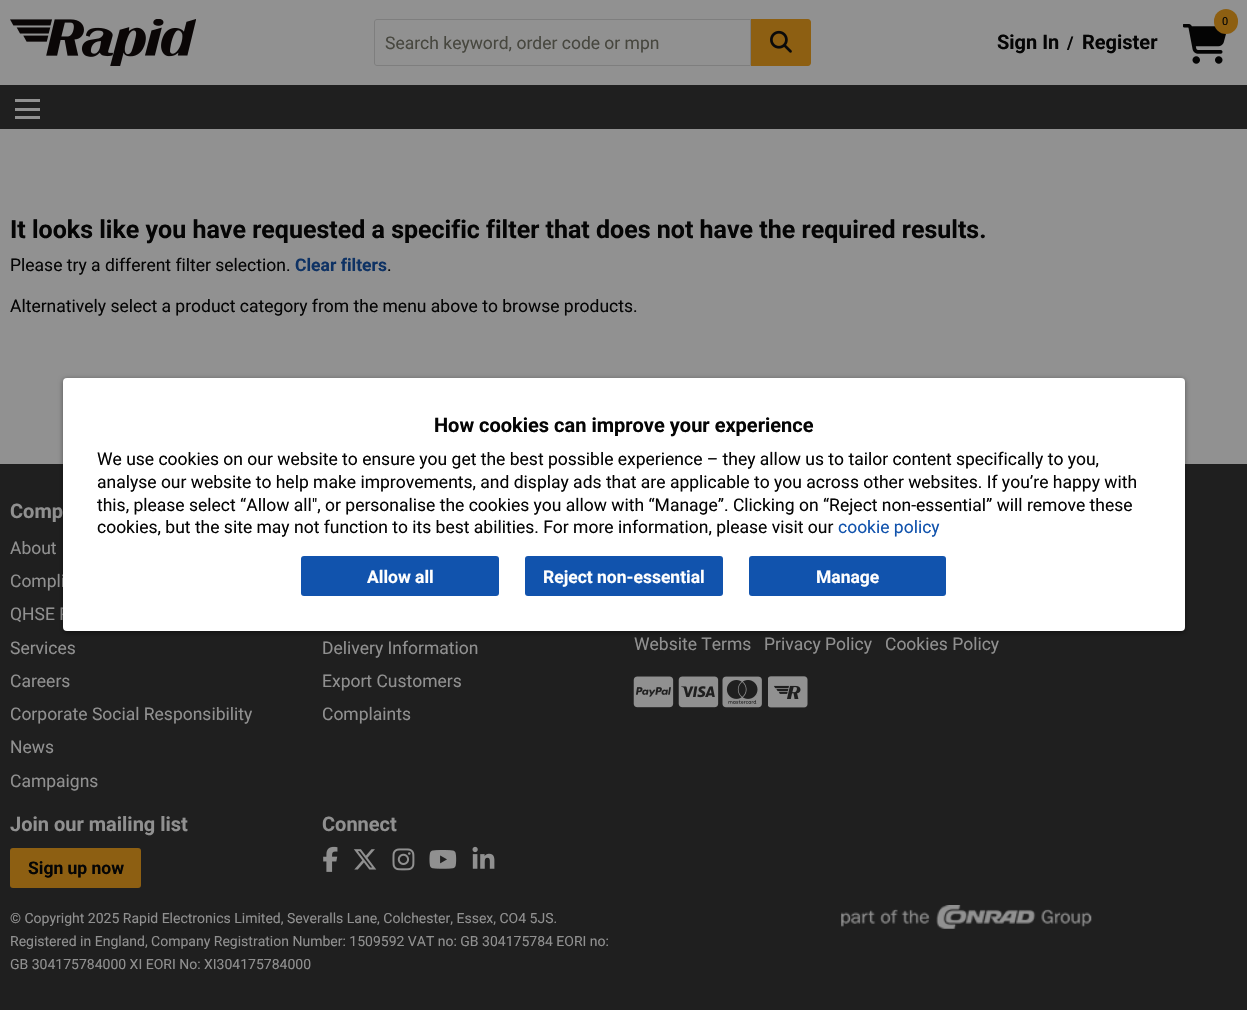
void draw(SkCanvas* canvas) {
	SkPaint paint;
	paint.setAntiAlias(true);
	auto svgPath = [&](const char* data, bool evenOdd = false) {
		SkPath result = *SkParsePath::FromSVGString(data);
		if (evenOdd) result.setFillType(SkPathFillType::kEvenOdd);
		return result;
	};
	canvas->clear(0xff919191);
	canvas->drawImageRect(SkImages::DeferredFromEncodedData(SkData::MakeFromFileName("img1.png")), SkRect::MakeXYWH(10, 19, 186, 47), SkSamplingOptions());
	paint.setStroke(true);
	paint.setStrokeWidth(1);
	paint.setColor(0xff7e7e7e);
	canvas->drawPath(svgPath("M377 19.5H750.5V65.5H377C375.5 65.5 374.5 64.5 374.5 63V22C374.5 20.5 375.5 19.5 377 19.5Z"), paint);
	SkFont f1(fontMgr->matchFamilyStyle("Roboto", SkFontStyle::Normal()), 17.5);
	f1.setSubpixel(true);
	paint.setStroke(false);
	paint.setColor(0xff47473f);
	canvas->drawString("Search keyword, order code or mpn", 385, 49, f1, paint);
	paint.setColor(0xff8d5f12);
	canvas->drawPath(svgPath("M751 19H808C809.5 19 811 20.5 811 22V63C811 64.5 809.5 66 808 66H751Z"), paint);
	canvas->drawImageRect(SkImages::DeferredFromEncodedData(SkData::MakeFromFileName("img2.png")), SkRect::MakeXYWH(770, 30, 22, 23), SkSamplingOptions());
	canvas->drawImageRect(SkImages::DeferredFromEncodedData(SkData::MakeFromFileName("img3.png")), SkRect::MakeXYWH(1183, 24, 44, 40), SkSamplingOptions());
	canvas->drawRoundRect(SkRect::MakeXYWH(1214, 9, 24, 25), 12, 12, paint);
	SkFont f2(fontMgr->matchFamilyStyle("Roboto", SkFontStyle::Normal()), 11);
	f2.setSubpixel(true);
	paint.setColor(0xff050505);
	canvas->drawString("0", 1222, 25, f2, paint);
	SkFont f3(fontMgr->matchFamilyStyle("Roboto", SkFontStyle::Bold()), 20);
	f3.setSubpixel(true);
	canvas->drawString("Sign In", 997, 49, f3, paint);
	SkFont f4(fontMgr->matchFamilyStyle("Roboto", SkFontStyle::Bold()), 17.5);
	f4.setSubpixel(true);
	canvas->drawString("/", 1067, 49, f4, paint);
	canvas->drawString("Register", 1082, 49, f3, paint);
	paint.setColor(0xff1f1f1f);
	canvas->drawRect(SkRect::MakeXYWH(0, 85, 1247, 44), paint);
	paint.setColor(0xff909090);
	canvas->drawRect(SkRect::MakeXYWH(15, 116, 25, 3), paint);
	canvas->drawRect(SkRect::MakeXYWH(15, 108, 25, 3), paint);
	canvas->drawRect(SkRect::MakeXYWH(15, 99, 25, 3), paint);
	SkFont f5(fontMgr->matchFamilyStyle("Roboto", SkFontStyle::Bold()), 25);
	f5.setSubpixel(true);
	paint.setColor(0xff050505);
	canvas->drawString("It looks like you have requested a specific filter that does not have the required results.", 10, 238, f5, paint);
	canvas->drawString("Please try a different filter selection.", 10, 271, f1, paint);
	paint.setColor(0xff0e3264);
	canvas->drawString("Clear filters", 295, 271, f4, paint);
	paint.setColor(0xff050505);
	canvas->drawString(".", 387, 271, f1, paint);
	canvas->drawString("Alternatively select a product category from the menu above to browse products.", 10, 312, f1, paint);
	paint.setColor(0xff1f1f1f);
	canvas->drawRect(SkRect::MakeXYWH(0, 464, 1247, 546), paint);
	paint.setColor(0xff909090);
	canvas->drawString("Comp", 10, 518, f3, paint);
	canvas->drawString("About", 10, 554, f1, paint);
	canvas->drawString("Compli", 10, 587, f1, paint);
	canvas->drawString("QHSE P", 10, 620, f1, paint);
	canvas->drawString("Services", 10, 654, f1, paint);
	canvas->drawString("Careers", 10, 687, f1, paint);
	canvas->drawString("Corporate Social Responsibility", 10, 720, f1, paint);
	canvas->drawString("News", 10, 753, f1, paint);
	canvas->drawString("Campaigns", 10, 787, f1, paint);
	canvas->drawString("Delivery Information", 322, 654, f1, paint);
	canvas->drawString("Export Customers", 322, 687, f1, paint);
	canvas->drawString("Complaints", 322, 720, f1, paint);
	canvas->drawString("Join our mailing list", 10, 831, f3, paint);
	paint.setColor(0xff8d5f12);
	canvas->drawRoundRect(SkRect::MakeXYWH(10, 848, 131, 40), 3, 3, paint);
	paint.setColor(0xff050505);
	canvas->drawString("Sign up now", 28, 874, f4, paint);
	paint.setColor(0xff909090);
	canvas->drawString("Connect", 322, 831, f3, paint);
	canvas->drawImageRect(SkImages::DeferredFromEncodedData(SkData::MakeFromFileName("img4.png")), SkRect::MakeXYWH(323, 846, 15, 26), SkSamplingOptions());
	canvas->drawImageRect(SkImages::DeferredFromEncodedData(SkData::MakeFromFileName("img5.png")), SkRect::MakeXYWH(353, 849, 24, 21), SkSamplingOptions());
	canvas->drawImageRect(SkImages::DeferredFromEncodedData(SkData::MakeFromFileName("img6.png")), SkRect::MakeXYWH(392, 848, 23, 23), SkSamplingOptions());
	canvas->drawImageRect(SkImages::DeferredFromEncodedData(SkData::MakeFromFileName("img7.png")), SkRect::MakeXYWH(429, 850, 28, 19), SkSamplingOptions());
	canvas->drawImageRect(SkImages::DeferredFromEncodedData(SkData::MakeFromFileName("img8.png")), SkRect::MakeXYWH(472, 846, 23, 23), SkSamplingOptions());
	canvas->drawString("Website Terms", 634, 650, f1, paint);
	canvas->drawString("Privacy Policy", 764, 650, f1, paint);
	canvas->drawString("Cookies Policy", 885, 650, f1, paint);
	canvas->drawImageRect(SkImages::DeferredFromEncodedData(SkData::MakeFromFileName("img9.png")), SkRect::MakeXYWH(633, 676, 41, 32), SkSamplingOptions());
	canvas->drawImageRect(SkImages::DeferredFromEncodedData(SkData::MakeFromFileName("img10.png")), SkRect::MakeXYWH(678, 676, 41, 32), SkSamplingOptions());
	canvas->drawImageRect(SkImages::DeferredFromEncodedData(SkData::MakeFromFileName("img11.png")), SkRect::MakeXYWH(722, 676, 40, 32), SkSamplingOptions());
	canvas->drawImageRect(SkImages::DeferredFromEncodedData(SkData::MakeFromFileName("img12.png")), SkRect::MakeXYWH(768, 676, 40, 32), SkSamplingOptions());
	SkFont f6(fontMgr->matchFamilyStyle("Roboto", SkFontStyle::Normal()), 14);
	f6.setSubpixel(true);
	canvas->drawString("© Copyright 2025 Rapid Electronics Limited, Severalls Lane, Colchester, Essex, CO4 5JS.", 10, 923, f6, paint);
	canvas->drawString("Registered in England, Company Registration Number: 1509592 VAT no: GB 304175784 EORI no:", 10, 946, f6, paint);
	canvas->drawString("GB 304175784000 XI EORI No: XI304175784000", 10, 969, f6, paint);
	canvas->drawImageRect(SkImages::DeferredFromEncodedData(SkData::MakeFromFileName("img13.png")), SkRect::MakeXYWH(841, 905, 251, 24), SkSamplingOptions());
	paint.setColor(0x66000000);
	paint.setMaskFilter(SkMaskFilter::MakeBlur(kNormal_SkBlurStyle, 2.5));
	canvas->drawRoundRect(SkRect::MakeXYWH(63, 379, 1122, 254), 4, 4, paint);
	paint.setMaskFilter(nullptr);
	paint.setColor(0xffffffff);
	canvas->drawRoundRect(SkRect::MakeXYWH(63, 378, 1122, 253), 4, 4, paint);
	paint.setColor(0xff050505);
	canvas->drawString("How cookies can improve your experience", 434, 432, f3, paint);
	canvas->drawString("We use cookies on our website to ensure you get the best possible experience – they allow us to tailor content specifically to you,", 97, 465, f1, paint);
	canvas->drawString("analyse our website to help make improvements, and display ads that are applicable to you across other websites. If you’re happy with", 97, 488, f1, paint);
	canvas->drawString("this, please select “Allow all\", or personalise the cookies you allow with “Manage”. Clicking on “Reject non-essential” will remove these", 97, 511, f1, paint);
	canvas->drawString("cookies, but the site may not function to its best abilities. For more information, please visit our", 97, 533, f1, paint);
	paint.setColor(0xff1153ad);
	canvas->drawString("cookie policy", 838, 533, f1, paint);
	canvas->drawRoundRect(SkRect::MakeXYWH(301, 556, 198, 40), 3, 3, paint);
	paint.setColor(0xfffefefe);
	canvas->drawString("Allow all", 367, 583, f4, paint);
	paint.setColor(0xff1153ad);
	canvas->drawRoundRect(SkRect::MakeXYWH(525, 556, 198, 40), 3, 3, paint);
	paint.setColor(0xfffefefe);
	canvas->drawString("Reject non-essential", 543, 583, f4, paint);
	paint.setColor(0xff1153ad);
	canvas->drawRoundRect(SkRect::MakeXYWH(749, 556, 197, 40), 3, 3, paint);
	paint.setColor(0xfffefefe);
	canvas->drawString("Manage", 816, 583, f4, paint);
}
